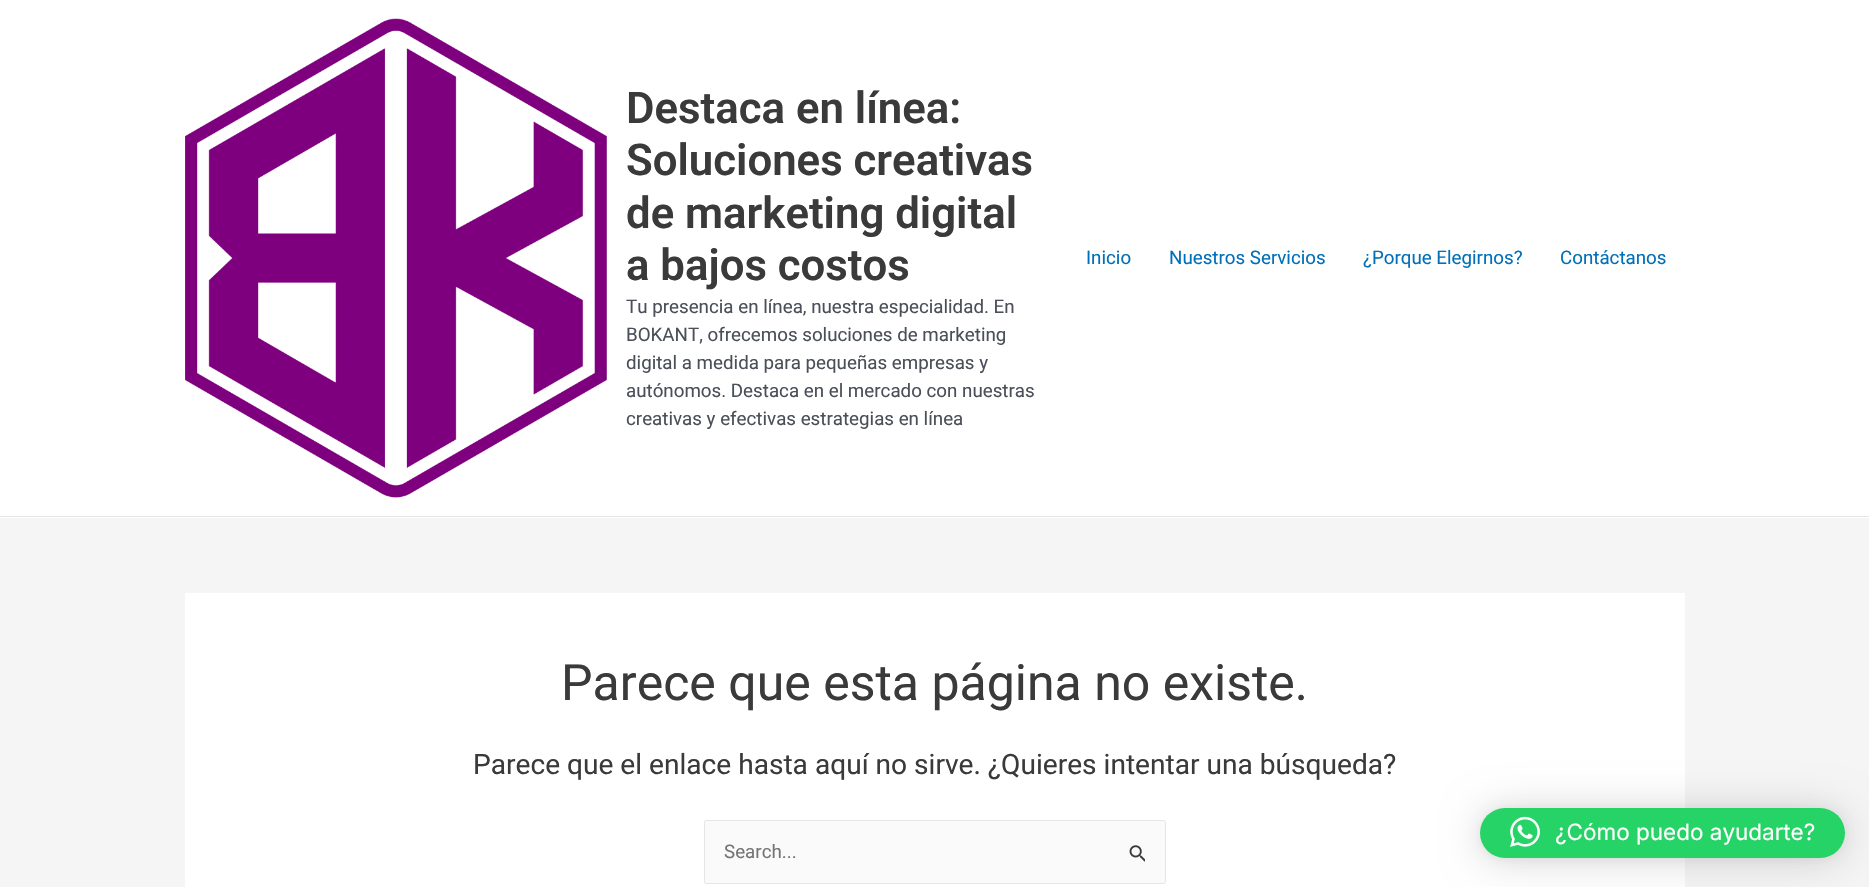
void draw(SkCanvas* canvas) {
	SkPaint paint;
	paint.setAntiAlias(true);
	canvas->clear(0xfff5f5f5);
	paint.setColor(0xffffffff);
	canvas->drawRect(SkRect::MakeXYWH(0, 0, 1869, 518), paint);
	paint.setColor(0xffe5e5e5);
	canvas->drawRect(SkRect::MakeXYWH(0, 516, 1869, 1), paint);
	canvas->drawImageRect(SkImages::DeferredFromEncodedData(SkData::MakeFromFileName("img1.png")), SkRect::MakeXYWH(185, 18, 422, 480), SkSamplingOptions());
	SkFont f1(fontMgr->matchFamilyStyle("Roboto", SkFontStyle(600, SkFontStyle::kNormal_Width, SkFontStyle::kUpright_Slant)), 43.75);
	f1.setSubpixel(true);
	paint.setColor(0xff3a3a3a);
	canvas->drawString("Destaca en línea:", 626, 123, f1, paint);
	canvas->drawString("Soluciones creativas", 626, 175, f1, paint);
	canvas->drawString("de marketing digital", 626, 228, f1, paint);
	canvas->drawString("a bajos costos", 626, 280, f1, paint);
	SkFont f2(fontMgr->matchFamilyStyle("Roboto", SkFontStyle::Normal()), 18.75);
	f2.setSubpixel(true);
	paint.setColor(0xff4b4f58);
	canvas->drawString("Tu presencia en línea, nuestra especialidad. En", 626, 313, f2, paint);
	canvas->drawString("BOKANT, ofrecemos soluciones de marketing", 626, 341, f2, paint);
	canvas->drawString("digital a medida para pequeñas empresas y", 626, 369, f2, paint);
	canvas->drawString("autónomos. Destaca en el mercado con nuestras", 626, 397, f2, paint);
	canvas->drawString("creativas y efectivas estrategias en línea", 626, 425, f2, paint);
	paint.setColor(0xff0170b9);
	canvas->drawString("Inicio", 1086, 264, f2, paint);
	canvas->drawString("Nuestros Servicios", 1169, 264, f2, paint);
	canvas->drawString("¿Porque Elegirnos?", 1363, 264, f2, paint);
	canvas->drawString("Contáctanos", 1560, 264, f2, paint);
	paint.setColor(0xffffffff);
	canvas->drawRect(SkRect::MakeXYWH(185, 593, 1500, 294), paint);
	SkFont f3(fontMgr->matchFamilyStyle("Roboto", SkFontStyle::Normal()), 50);
	f3.setSubpixel(true);
	paint.setColor(0xff3a3a3a);
	canvas->drawString("Parece que esta página no existe.", 561, 700, f3, paint);
	SkFont f4(fontMgr->matchFamilyStyle("Roboto", SkFontStyle::Normal()), 28.1);
	f4.setSubpixel(true);
	canvas->drawString("Parece que el enlace hasta aquí no sirve. ¿Quieres intentar una búsqueda?", 473, 774, f4, paint);
	paint.setColor(0xfffafafa);
	canvas->drawRoundRect(SkRect::MakeXYWH(704.5, 820.5, 461, 63), 2, 2, paint);
	paint.setStroke(true);
	paint.setStrokeWidth(1);
	paint.setColor(0xffe5e5e5);
	canvas->drawRoundRect(SkRect::MakeXYWH(704.5, 820.5, 461, 63), 2, 2, paint);
	paint.setStroke(false);
	paint.setColor(0xff757575);
	canvas->drawString("Search...", 724, 858, f2, paint);
	canvas->drawImageRect(SkImages::DeferredFromEncodedData(SkData::MakeFromFileName("img2.png")), SkRect::MakeXYWH(1129, 845, 16, 17), SkSamplingOptions());
	paint.setColor(0x29000000);
	paint.setMaskFilter(SkMaskFilter::MakeBlur(kNormal_SkBlurStyle, 20));
	canvas->drawRoundRect(SkRect::MakeXYWH(1480, 810, 365, 50), 25, 25, paint);
	paint.setMaskFilter(nullptr);
	paint.setColor(0x0f000000);
	paint.setMaskFilter(SkMaskFilter::MakeBlur(kNormal_SkBlurStyle, 4));
	canvas->drawRoundRect(SkRect::MakeXYWH(1480, 809, 365, 50), 25, 25, paint);
	paint.setMaskFilter(nullptr);
	paint.setColor(0xff25d366);
	canvas->drawRoundRect(SkRect::MakeXYWH(1480, 808, 365, 50), 25, 25, paint);
	canvas->drawImageRect(SkImages::DeferredFromEncodedData(SkData::MakeFromFileName("img3.png")), SkRect::MakeXYWH(1510, 816, 30, 31), SkSamplingOptions());
	SkFont f5(fontMgr->matchFamilyStyle("Inter", SkFontStyle::Normal()), 22.5);
	f5.setSubpixel(true);
	paint.setColor(0xffffffff);
	canvas->drawString("¿Cómo puedo ayudarte?", 1555, 840, f5, paint);
}
